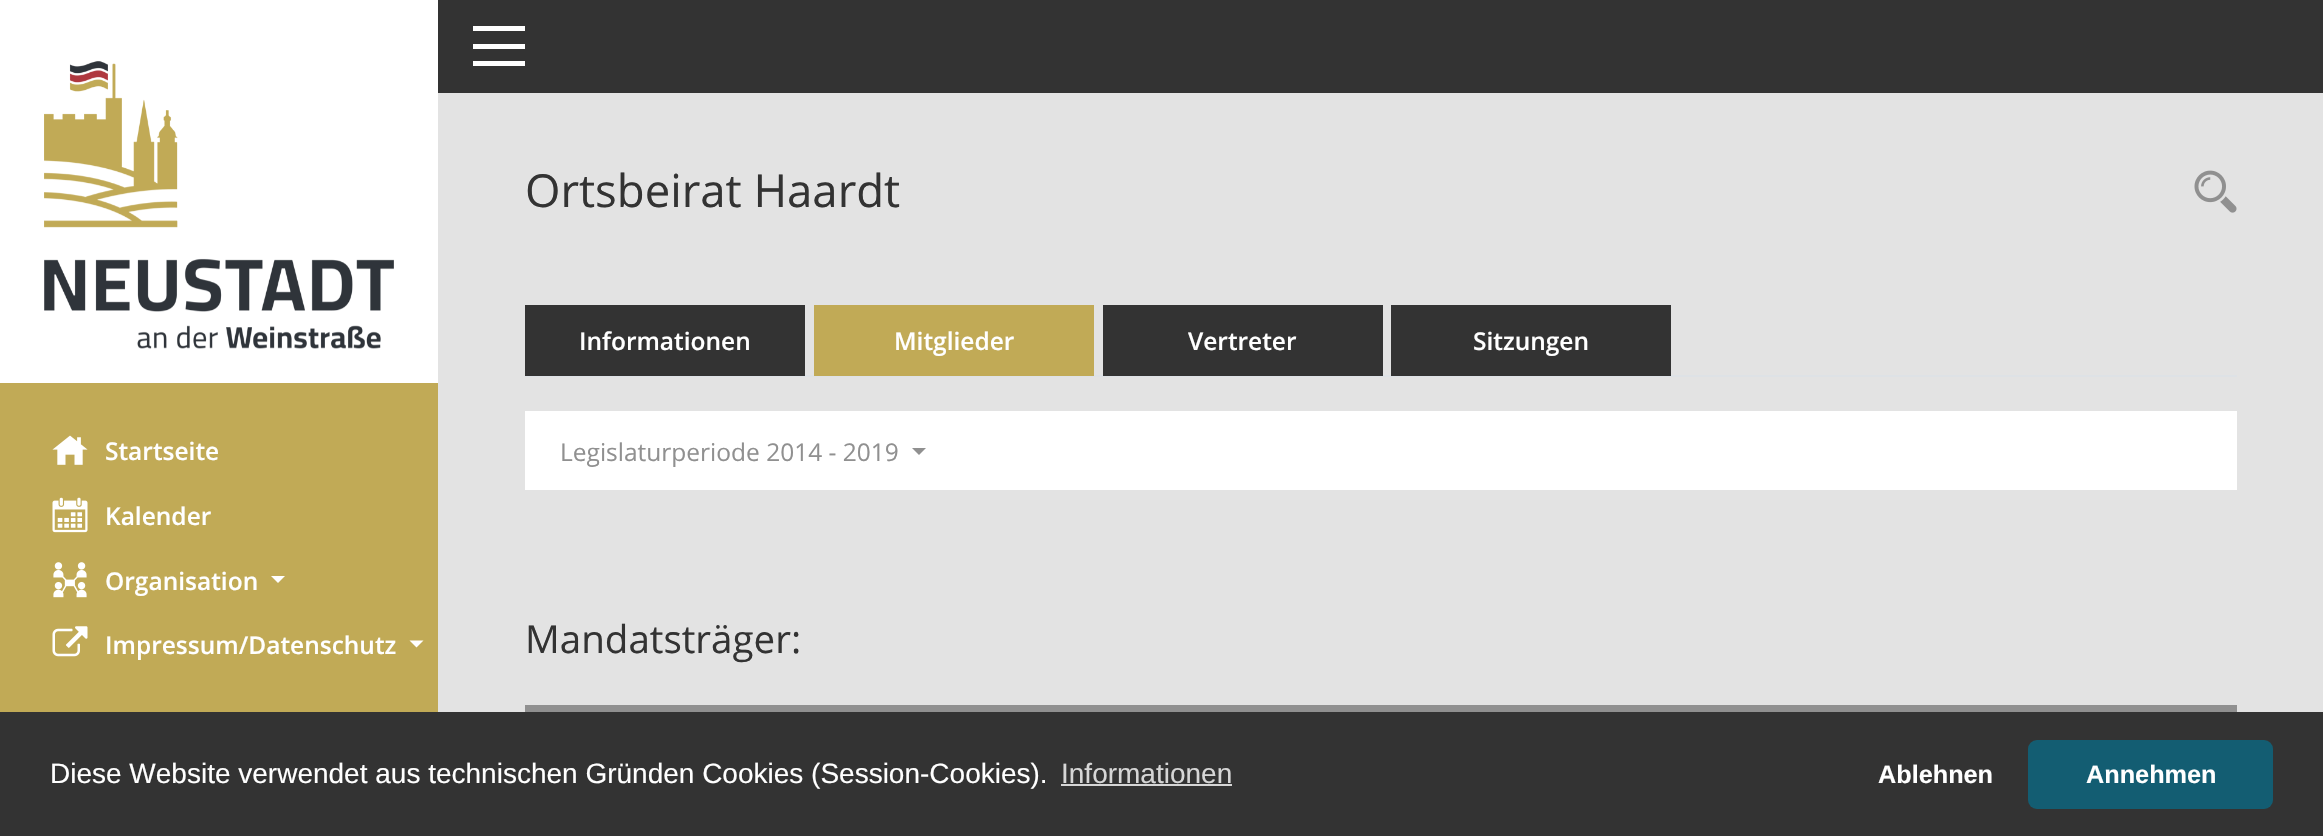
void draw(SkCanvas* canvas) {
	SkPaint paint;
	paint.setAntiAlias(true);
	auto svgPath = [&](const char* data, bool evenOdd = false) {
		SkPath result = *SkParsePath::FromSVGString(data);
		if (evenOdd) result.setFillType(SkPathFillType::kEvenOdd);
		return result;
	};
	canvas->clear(0xffe3e3e3);
	paint.setColor(0xffc1aa56);
	canvas->drawRect(SkRect::MakeXYWH(0, 383, 438, 329), paint);
	paint.setColor(0xffffffff);
	canvas->drawRect(SkRect::MakeXYWH(0, 0, 438, 383), paint);
	canvas->drawImageRect(SkImages::DeferredFromEncodedData(SkData::MakeFromFileName("img1.png")), SkRect::MakeXYWH(44, 61, 350, 288), SkSamplingOptions());
	canvas->drawImageRect(SkImages::DeferredFromEncodedData(SkData::MakeFromFileName("img2.png")), SkRect::MakeXYWH(52, 435, 36, 30), SkSamplingOptions());
	SkFont f1(fontMgr->matchFamilyStyle("Open Sans", SkFontStyle(600, SkFontStyle::kNormal_Width, SkFontStyle::kUpright_Slant)), 24.5);
	f1.setSubpixel(true);
	canvas->drawString("Startseite", 105, 460, f1, paint);
	canvas->drawImageRect(SkImages::DeferredFromEncodedData(SkData::MakeFromFileName("img3.png")), SkRect::MakeXYWH(52, 497, 36, 36), SkSamplingOptions());
	canvas->drawString("Kalender", 105, 525, f1, paint);
	canvas->drawImageRect(SkImages::DeferredFromEncodedData(SkData::MakeFromFileName("img4.png")), SkRect::MakeXYWH(53, 562, 34, 36), SkSamplingOptions());
	canvas->drawString("Organisation", 105, 590, f1, paint);
	canvas->drawPath(svgPath("M271 576H285L278 583Z"), paint);
	canvas->drawImageRect(SkImages::DeferredFromEncodedData(SkData::MakeFromFileName("img5.png")), SkRect::MakeXYWH(52, 626, 36, 31), SkSamplingOptions());
	canvas->drawString("Impressum/Datenschutz", 105, 654, f1, paint);
	canvas->drawPath(svgPath("M409.5 640.5H423.5L416.5 647.5Z"), paint);
	paint.setColor(0xff333333);
	canvas->drawRect(SkRect::MakeXYWH(438, 0, 1885, 93), paint);
	paint.setColor(0xffffffff);
	canvas->drawRect(SkRect::MakeXYWH(473, 26, 52, 5), paint);
	canvas->drawRect(SkRect::MakeXYWH(473, 44, 52, 5), paint);
	canvas->drawRect(SkRect::MakeXYWH(473, 61, 52, 5), paint);
	SkFont f2(fontMgr->matchFamilyStyle("Open Sans", SkFontStyle::Normal()), 45.5);
	f2.setSubpixel(true);
	paint.setColor(0xff333333);
	canvas->drawString("Ortsbeirat Haardt", 525, 207, f2, paint);
	canvas->drawImageRect(SkImages::DeferredFromEncodedData(SkData::MakeFromFileName("img6.png")), SkRect::MakeXYWH(2194, 170, 43, 43), SkSamplingOptions());
	paint.setColor(0xffdee2e6);
	canvas->drawRect(SkRect::MakeXYWH(525, 375, 1712, 2), paint);
	paint.setColor(0xff333333);
	canvas->drawRect(SkRect::MakeXYWH(525, 305, 280, 71), paint);
	paint.setColor(0xffffffff);
	canvas->drawString("Informationen", 579, 350, f1, paint);
	paint.setColor(0xffc1aa56);
	canvas->drawRect(SkRect::MakeXYWH(814, 305, 280, 71), paint);
	paint.setColor(0xffffffff);
	canvas->drawString("Mitglieder", 894, 350, f1, paint);
	paint.setColor(0xff333333);
	canvas->drawRect(SkRect::MakeXYWH(1103, 305, 280, 71), paint);
	paint.setColor(0xffffffff);
	canvas->drawString("Vertreter", 1188, 350, f1, paint);
	paint.setColor(0xff333333);
	canvas->drawRect(SkRect::MakeXYWH(1391, 305, 280, 71), paint);
	paint.setColor(0xffffffff);
	canvas->drawString("Sitzungen", 1473, 350, f1, paint);
	canvas->drawRect(SkRect::MakeXYWH(525, 411, 1712, 79), paint);
	SkFont f3(fontMgr->matchFamilyStyle("Open Sans", SkFontStyle::Normal()), 24.5);
	f3.setSubpixel(true);
	paint.setColor(0xff909090);
	canvas->drawString("Legislaturperiode 2014 - 2019", 560, 461, f3, paint);
	canvas->drawPath(svgPath("M912 448H926L919 455Z"), paint);
	SkFont f4(fontMgr->matchFamilyStyle("Open Sans", SkFontStyle::Normal()), 38.5);
	f4.setSubpixel(true);
	paint.setColor(0xff333333);
	canvas->drawString("Mandatsträger:", 525, 653, f4, paint);
	paint.setColor(0xff909090);
	canvas->drawRect(SkRect::MakeXYWH(525, 705, 1712, 7), paint);
	paint.setColor(0xff333333);
	canvas->drawRect(SkRect::MakeXYWH(0, 712, 2323, 124), paint);
	SkFont f5(fontMgr->matchFamilyStyle("Liberation Sans", SkFontStyle::Normal()), 28);
	f5.setSubpixel(true);
	paint.setColor(0xffffffff);
	canvas->drawString("Diese Website verwendet aus technischen Gründen Cookies (Session-Cookies).", 50, 783, f5, paint);
	paint.setColor(0xffd6d6d6);
	canvas->drawString("Informationen", 1061, 783, f5, paint);
	canvas->drawRect(SkRect::MakeXYWH(1061, 784, 171, 2), paint);
	SkFont f6(fontMgr->matchFamilyStyle("Liberation Sans", SkFontStyle::Bold()), 25.25);
	f6.setSubpixel(true);
	paint.setColor(0xffffffff);
	canvas->drawString("Ablehnen", 1878, 783, f6, paint);
	paint.setColor(0xff135d72);
	canvas->drawRoundRect(SkRect::MakeXYWH(2028, 740, 245, 69), 9, 9, paint);
	paint.setColor(0xffffffff);
	canvas->drawString("Annehmen", 2086, 783, f6, paint);
}
